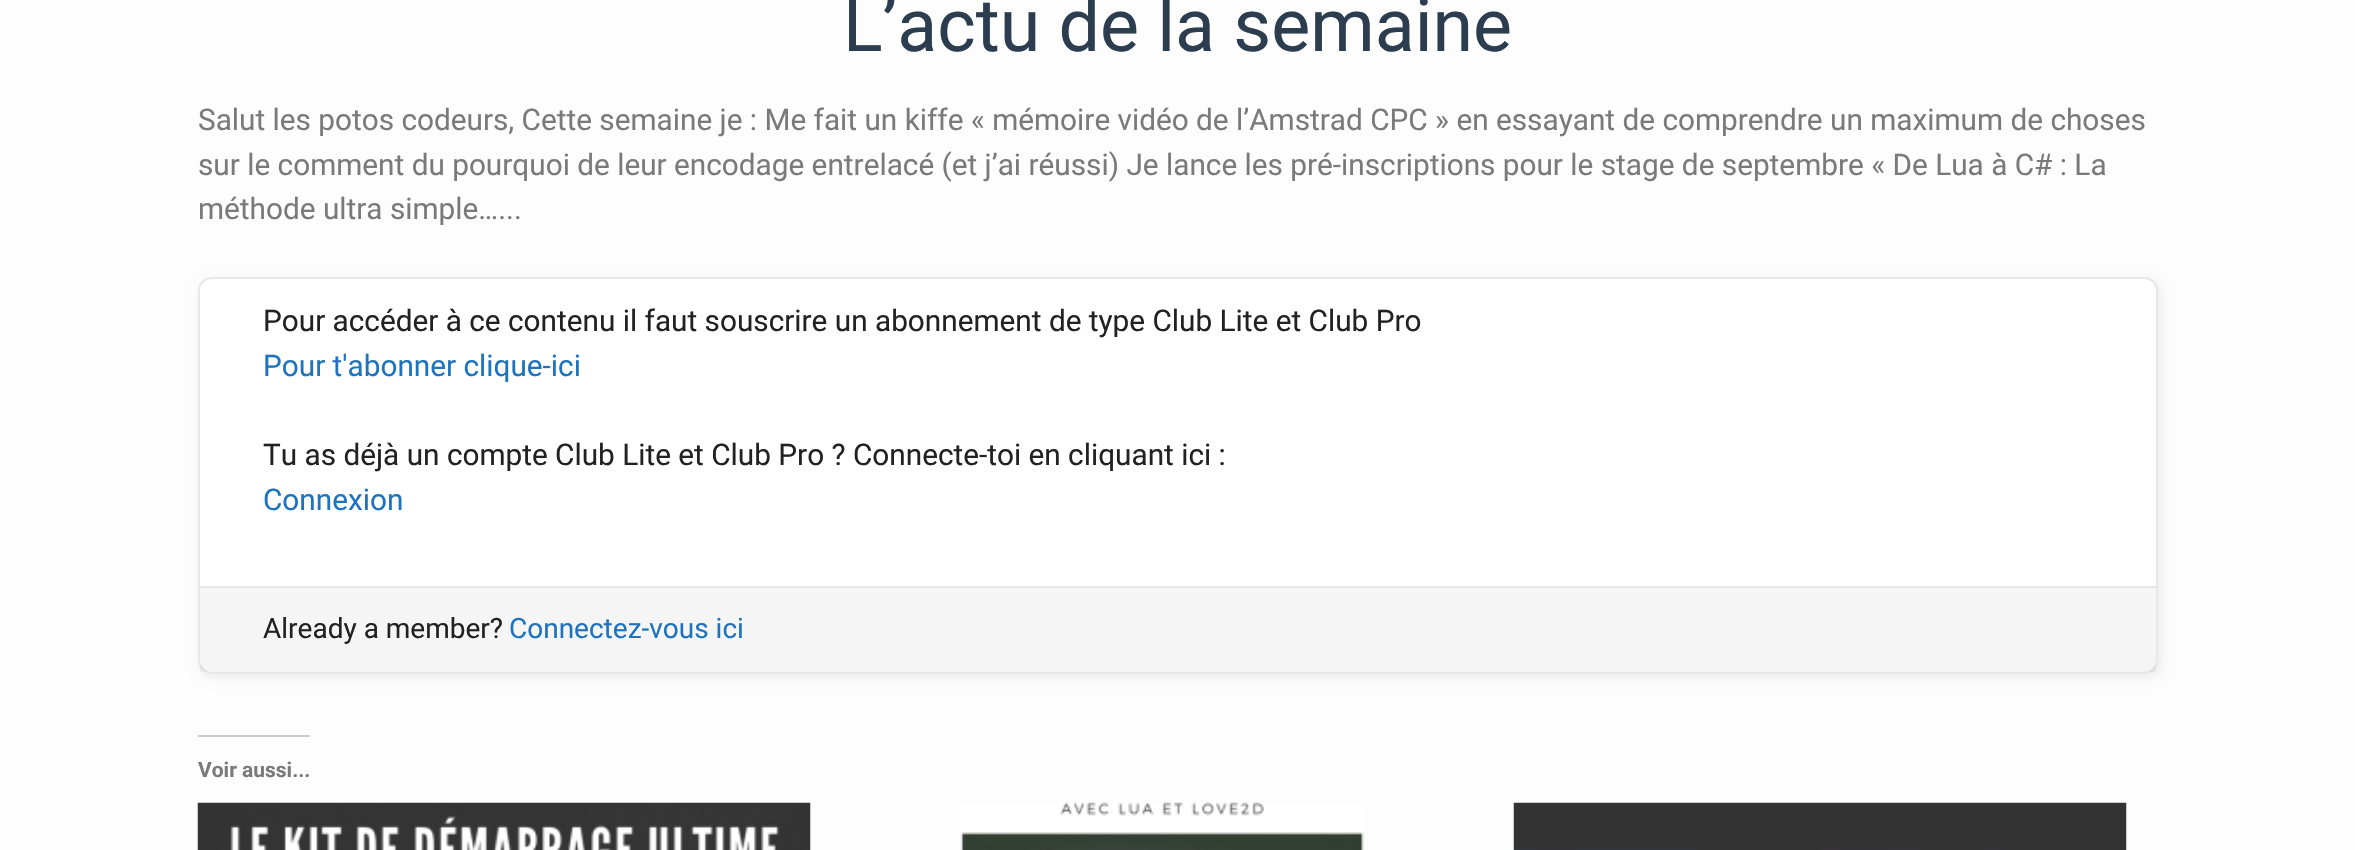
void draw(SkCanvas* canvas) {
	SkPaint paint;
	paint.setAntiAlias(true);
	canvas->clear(0xfffdfdfd);
	SkFont f1(fontMgr->matchFamilyStyle("Roboto", SkFontStyle::Normal()), 73.5);
	f1.setSubpixel(true);
	paint.setColor(0xff2c3d50);
	canvas->drawString("L’actu de la semaine", 843, 51, f1, paint);
	SkFont f2(fontMgr->matchFamilyStyle("Roboto", SkFontStyle::Normal()), 29.75);
	f2.setSubpixel(true);
	paint.setColor(0xff7a7a7a);
	canvas->drawString("Salut les potos codeurs, Cette semaine je : Me fait un kiffe « mémoire vidéo de l’Amstrad CPC » en essayant de comprendre un maximum de choses", 198, 130, f2, paint);
	canvas->drawString("sur le comment du pourquoi de leur encodage entrelacé (et j’ai réussi) Je lance les pré-inscriptions pour le stage de septembre « De Lua à C# : La", 198, 175, f2, paint);
	canvas->drawString("méthode ultra simple…...", 198, 219, f2, paint);
	paint.setColor(0x12000000);
	paint.setMaskFilter(SkMaskFilter::MakeBlur(kNormal_SkBlurStyle, 6));
	canvas->drawRoundRect(SkRect::MakeXYWH(201, 280, 1960, 397), 14, 14, paint);
	paint.setMaskFilter(nullptr);
	paint.setColor(0xffffffff);
	canvas->drawRoundRect(SkRect::MakeXYWH(199, 278, 1958, 395), 13, 13, paint);
	paint.setStroke(true);
	paint.setStrokeWidth(2);
	paint.setColor(0xffe8e8e8);
	canvas->drawRoundRect(SkRect::MakeXYWH(199, 278, 1958, 395), 13, 13, paint);
	paint.setStroke(false);
	paint.setColor(0xff222222);
	canvas->drawString("Pour accéder à ce contenu il faut souscrire un abonnement de type Club Lite et Club Pro", 263, 331, f2, paint);
	paint.setColor(0xff1e73be);
	canvas->drawString("Pour t'abonner clique-ici", 263, 376, f2, paint);
	paint.setColor(0xff222222);
	canvas->drawString("Tu as déjà un compte Club Lite et Club Pro ? Connecte-toi en cliquant ici :", 263, 465, f2, paint);
	paint.setColor(0xff1e73be);
	canvas->drawString("Connexion", 263, 510, f2, paint);
	paint.setColor(0x0a000000);
	canvas->drawRect(SkRect::MakeXYWH(200, 588, 1956, 84), paint);
	paint.setColor(0xffe8e8e8);
	canvas->drawRect(SkRect::MakeXYWH(200, 586, 1956, 2), paint);
	SkFont f3(fontMgr->matchFamilyStyle("Roboto", SkFontStyle::Normal()), 28);
	f3.setSubpixel(true);
	paint.setColor(0xff222222);
	canvas->drawString("Already a member?", 263, 638, f3, paint);
	paint.setColor(0xff1e73be);
	canvas->drawString("Connectez-vous ici", 509, 638, f3, paint);
	paint.setColor(0xffcacaca);
	canvas->drawRect(SkRect::MakeXYWH(198, 735, 112, 2), paint);
	SkFont f4(fontMgr->matchFamilyStyle("Roboto", SkFontStyle::Bold()), 21);
	f4.setSubpixel(true);
	paint.setColor(0xff7a7a7a);
	canvas->drawString("Voir aussi...", 198, 777, f4, paint);
	canvas->drawImageRect(SkImages::DeferredFromEncodedData(SkData::MakeFromFileName("img1.png")), SkRect::MakeXYWH(197, 802, 614, 48), SkSamplingOptions());
	canvas->drawImageRect(SkImages::DeferredFromEncodedData(SkData::MakeFromFileName("img2.png")), SkRect::MakeXYWH(960, 802, 404, 48), SkSamplingOptions());
	canvas->drawImageRect(SkImages::DeferredFromEncodedData(SkData::MakeFromFileName("img3.png")), SkRect::MakeXYWH(1513, 802, 614, 48), SkSamplingOptions());
}
